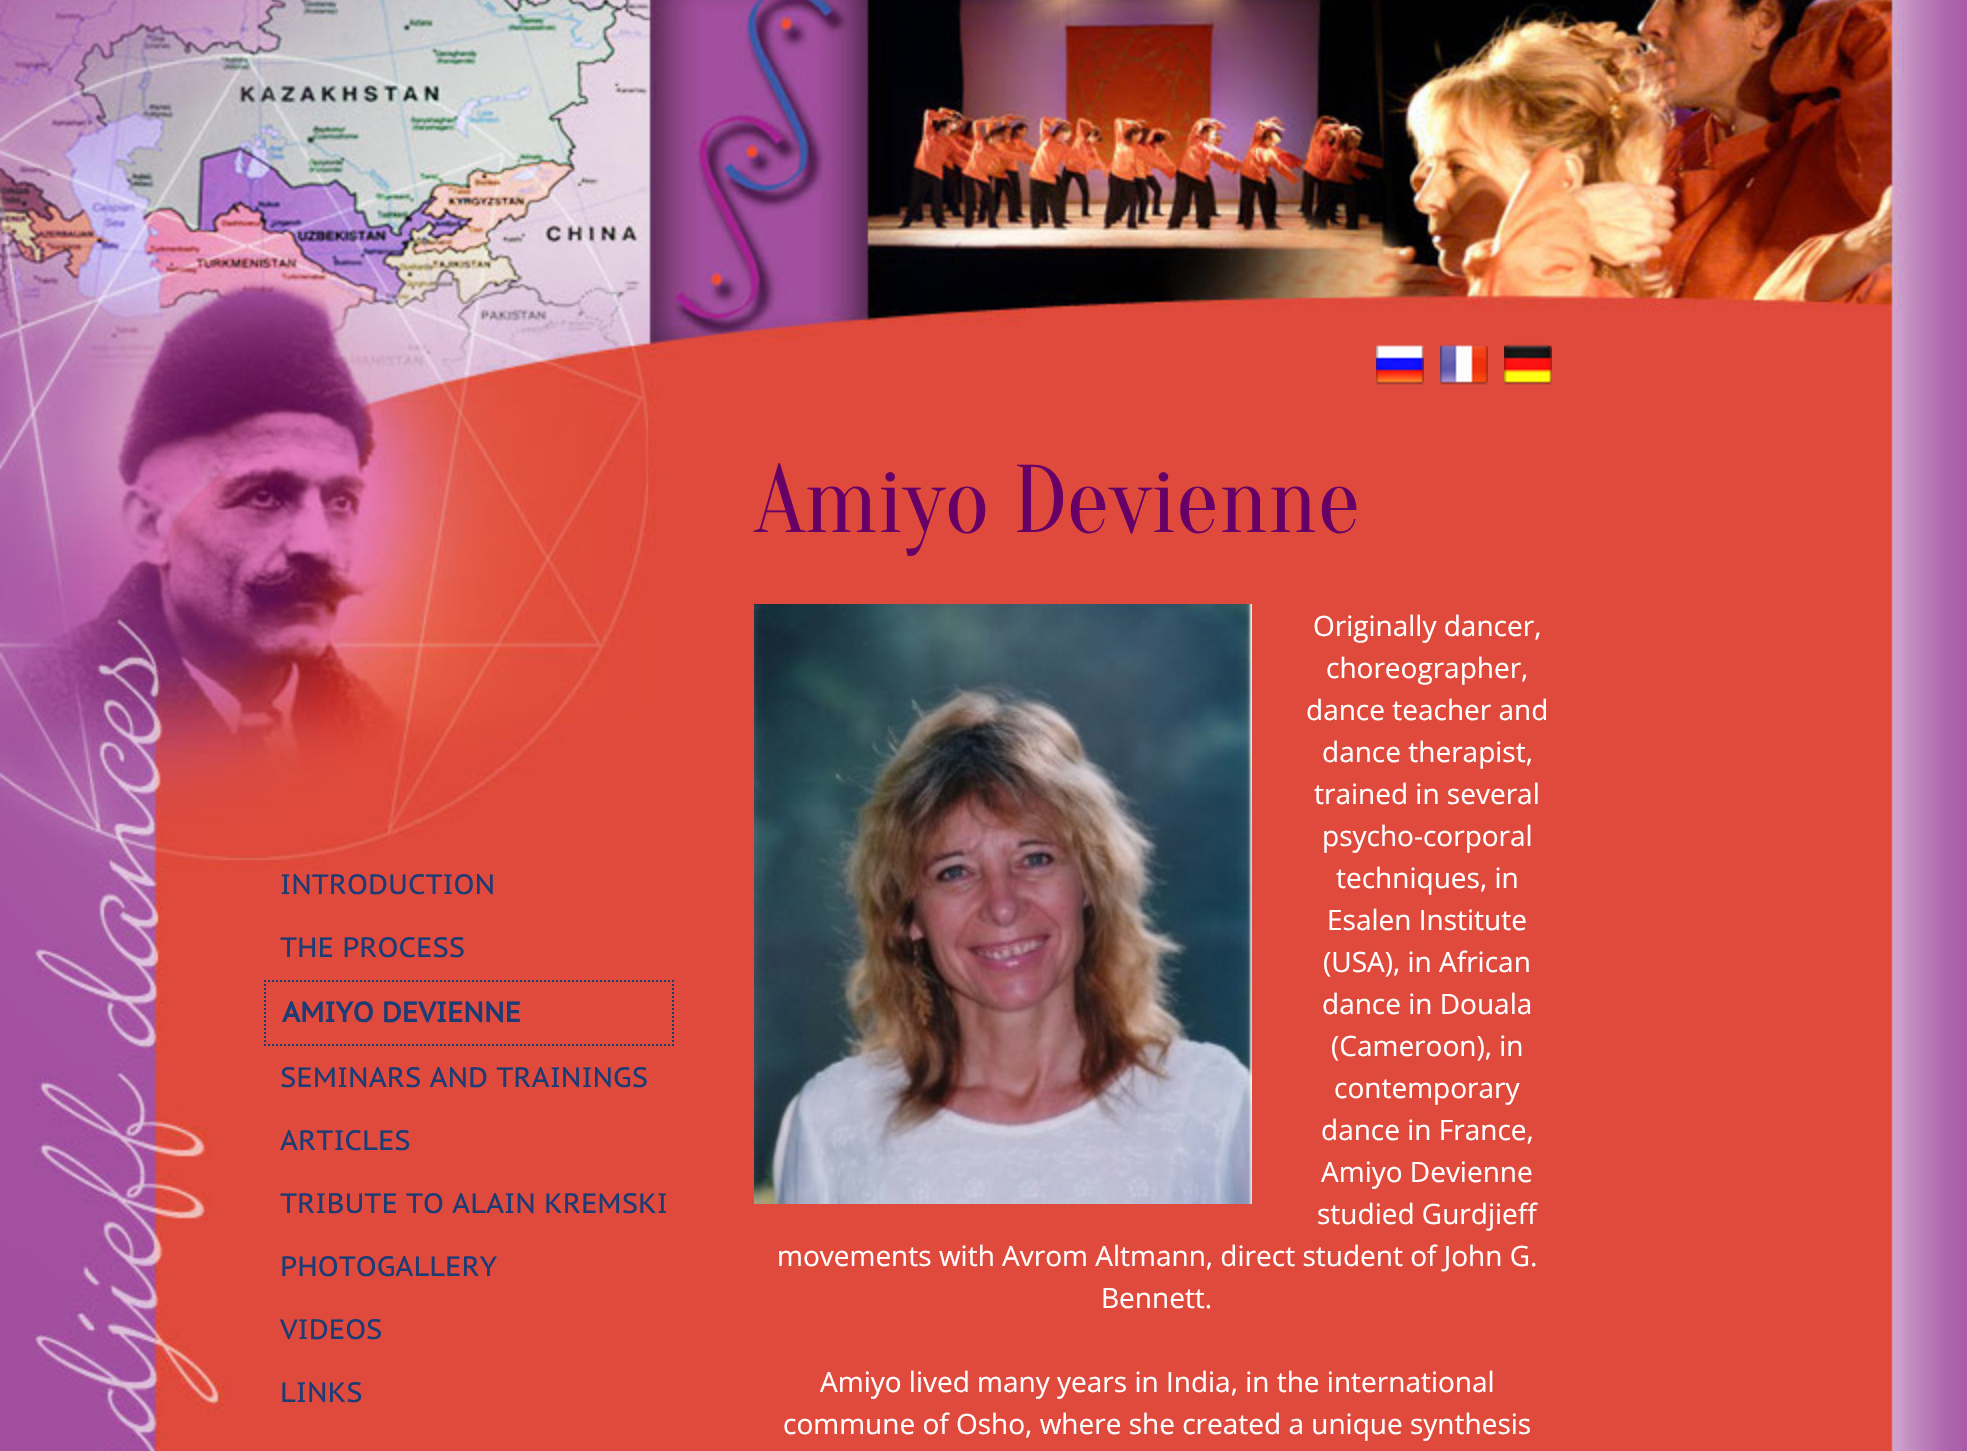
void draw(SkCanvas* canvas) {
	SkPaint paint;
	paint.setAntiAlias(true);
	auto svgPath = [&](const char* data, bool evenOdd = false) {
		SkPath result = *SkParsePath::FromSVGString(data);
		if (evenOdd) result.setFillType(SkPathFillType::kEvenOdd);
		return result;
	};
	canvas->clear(0xffffffff);
	canvas->drawImageRect(SkImages::DeferredFromEncodedData(SkData::MakeFromFileName("img1.png")), SkRect::MakeXYWH(0, 0, 1967, 1451), SkSamplingOptions());
	SkFont f1(fontMgr->matchFamilyStyle("PT Sans Caption", SkFontStyle::Normal()), 28);
	f1.setSubpixel(true);
	paint.setColor(0xff1e3b74);
	canvas->drawString("INTRODUCTION", 280, 894, f1, paint);
	canvas->drawString("THE PROCESS", 280, 957, f1, paint);
	paint.setStroke(true);
	paint.setStrokeWidth(2);
	paint.setPathEffect(SkDashPathEffect::Make({{2, 2}}, 0));
	canvas->drawPath(svgPath("M264 981H674"), paint);
	paint.setPathEffect(nullptr);
	paint.setPathEffect(SkDashPathEffect::Make({{2, 2}}, 0));
	canvas->drawPath(svgPath("M673 980V1046"), paint);
	paint.setPathEffect(nullptr);
	paint.setPathEffect(SkDashPathEffect::Make({{2, 2}}, 0));
	canvas->drawPath(svgPath("M264 1045H674"), paint);
	paint.setPathEffect(nullptr);
	paint.setPathEffect(SkDashPathEffect::Make({{2, 2}}, 0));
	canvas->drawPath(svgPath("M265 980V1046"), paint);
	paint.setPathEffect(nullptr);
	SkFont f2(fontMgr->matchFamilyStyle("PT Sans Caption", SkFontStyle::Bold()), 28);
	f2.setSubpixel(true);
	paint.setStroke(false);
	canvas->drawString("AMIYO DEVIENNE", 282, 1022, f2, paint);
	canvas->drawString("SEMINARS AND TRAININGS", 280, 1087, f1, paint);
	canvas->drawString("ARTICLES", 280, 1150, f1, paint);
	canvas->drawString("TRIBUTE TO ALAIN KREMSKI", 280, 1213, f1, paint);
	canvas->drawString("PHOTOGALLERY", 280, 1276, f1, paint);
	canvas->drawString("VIDEOS", 280, 1339, f1, paint);
	canvas->drawString("LINKS", 280, 1402, f1, paint);
	canvas->drawImageRect(SkImages::DeferredFromEncodedData(SkData::MakeFromFileName("img2.png")), SkRect::MakeXYWH(1376, 344, 48, 41), SkSamplingOptions());
	canvas->drawImageRect(SkImages::DeferredFromEncodedData(SkData::MakeFromFileName("img3.png")), SkRect::MakeXYWH(1440, 344, 48, 41), SkSamplingOptions());
	canvas->drawImageRect(SkImages::DeferredFromEncodedData(SkData::MakeFromFileName("img4.png")), SkRect::MakeXYWH(1504, 343, 48, 42), SkSamplingOptions());
	SkFont f3(fontMgr->matchFamilyStyle("Oranienbaum", SkFontStyle::Normal()), 96);
	f3.setSubpixel(true);
	paint.setColor(0xff660066);
	canvas->drawString("Amiyo Devienne", 754, 532, f3, paint);
	canvas->drawImageRect(SkImages::DeferredFromEncodedData(SkData::MakeFromFileName("img5.png")), SkRect::MakeXYWH(754, 604, 498, 600), SkSamplingOptions());
	SkFont f4(fontMgr->matchFamilyStyle("Open Sans", SkFontStyle::Normal()), 28);
	f4.setSubpixel(true);
	paint.setColor(0xffffffff);
	canvas->drawString("Originally dancer,", 1313, 636, f4, paint);
	canvas->drawString("choreographer,", 1326, 678, f4, paint);
	canvas->drawString("dance teacher and", 1306, 720, f4, paint);
	canvas->drawString("dance therapist,", 1322, 762, f4, paint);
	canvas->drawString("trained in several", 1314, 804, f4, paint);
	canvas->drawString("psycho-corporal", 1322, 846, f4, paint);
	canvas->drawString("techniques, in", 1336, 888, f4, paint);
	canvas->drawString("Esalen Institute", 1327, 930, f4, paint);
	canvas->drawString("(USA), in African", 1323, 972, f4, paint);
	canvas->drawString("dance in Douala", 1322, 1014, f4, paint);
	canvas->drawString("(Cameroon), in", 1331, 1056, f4, paint);
	canvas->drawString("contemporary", 1334, 1098, f4, paint);
	canvas->drawString("dance in France,", 1321, 1140, f4, paint);
	canvas->drawString("Amiyo Devienne", 1321, 1182, f4, paint);
	canvas->drawString("studied Gurdjieff", 1317, 1224, f4, paint);
	canvas->drawString("movements with Avrom Altmann, direct student of John G.", 777, 1266, f4, paint);
	canvas->drawString("Bennett.", 1101, 1308, f4, paint);
	canvas->drawString("Amiyo lived many years in India, in the international", 820, 1392, f4, paint);
	canvas->drawString("commune of Osho, where she created a unique synthesis", 783, 1434, f4, paint);
}
